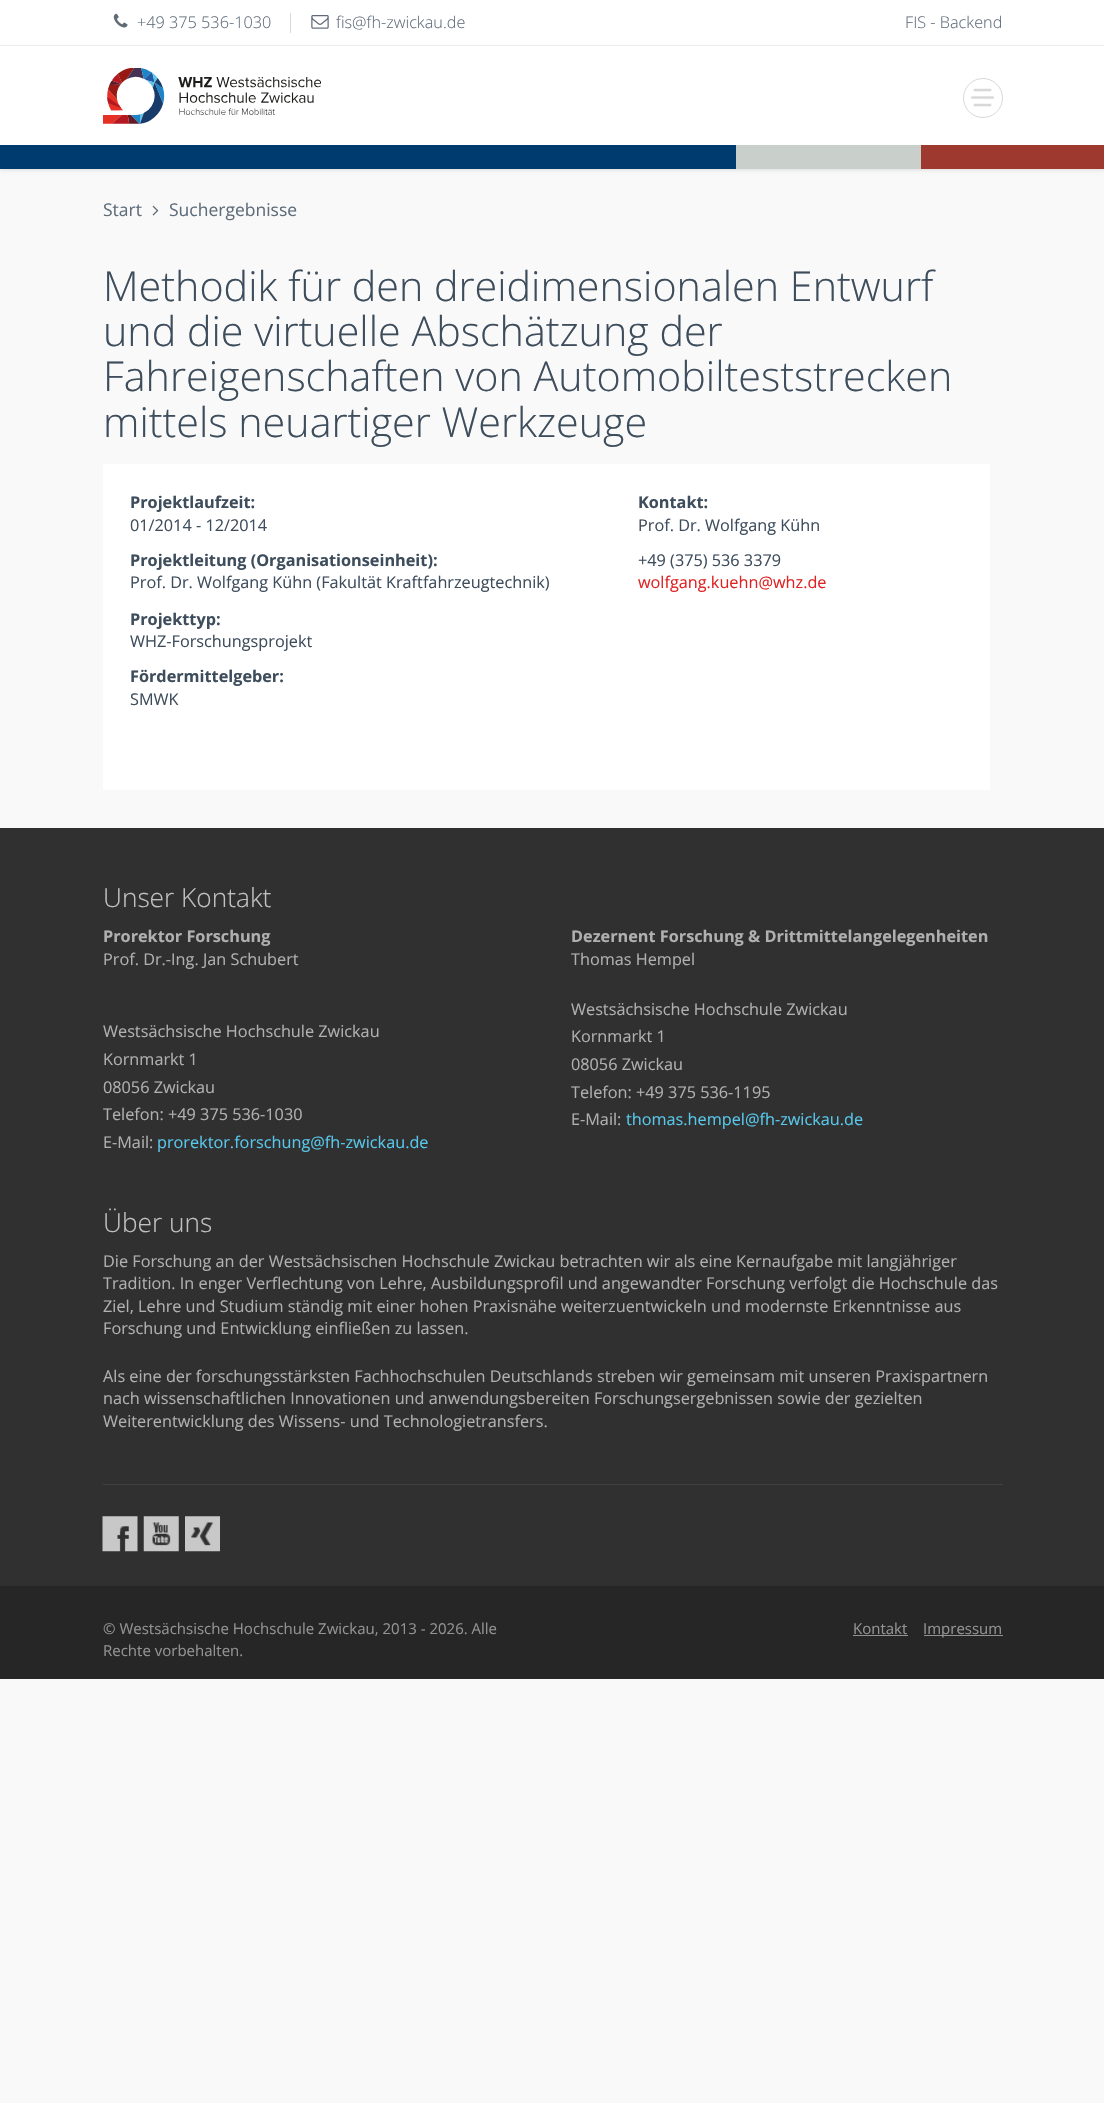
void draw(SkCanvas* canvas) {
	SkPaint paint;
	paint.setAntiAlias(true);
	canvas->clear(0xfff9f9f9);
	paint.setColor(0xffffffff);
	canvas->drawRect(SkRect::MakeXYWH(0, 0, 1104, 45), paint);
	paint.setColor(0xffeeeeee);
	canvas->drawRect(SkRect::MakeXYWH(0, 45, 1104, 1), paint);
	paint.setColor(0xffd8d8d8);
	canvas->drawRect(SkRect::MakeXYWH(290, 13, 1, 20), paint);
	canvas->drawImageRect(SkImages::DeferredFromEncodedData(SkData::MakeFromFileName("img1.png")), SkRect::MakeXYWH(113, 13, 15, 15), SkSamplingOptions());
	SkFont f1(fontMgr->matchFamilyStyle("Open Sans", SkFontStyle(300, SkFontStyle::kNormal_Width, SkFontStyle::kUpright_Slant)), 16.25);
	f1.setSubpixel(true);
	paint.setColor(0xff5f6d7b);
	canvas->drawString("+49 375 536-1030", 137, 28, f1, paint);
	canvas->drawImageRect(SkImages::DeferredFromEncodedData(SkData::MakeFromFileName("img2.png")), SkRect::MakeXYWH(311, 15, 18, 14), SkSamplingOptions());
	canvas->drawString("fis@fh-zwickau.de", 336, 28, f1, paint);
	canvas->drawString("FIS - Backend", 905, 28, f1, paint);
	paint.setColor(0xffdddddd);
	paint.setMaskFilter(SkMaskFilter::MakeBlur(kNormal_SkBlurStyle, 2));
	canvas->drawRect(SkRect::MakeXYWH(0, 48, 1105, 122), paint);
	paint.setMaskFilter(nullptr);
	paint.setColor(0xffffffff);
	canvas->drawRect(SkRect::MakeXYWH(0, 46, 1104, 99), paint);
	canvas->drawImageRect(SkImages::DeferredFromEncodedData(SkData::MakeFromFileName("img3.png")), SkRect::MakeXYWH(103, 68, 218, 56), SkSamplingOptions());
	canvas->drawImageRect(SkImages::DeferredFromEncodedData(SkData::MakeFromFileName("img4.png")), SkRect::MakeXYWH(971, 88, 23, 19), SkSamplingOptions());
	paint.setStroke(true);
	paint.setStrokeWidth(1);
	paint.setColor(0xffd8d8d8);
	canvas->drawCircle(983, 98, 19.5, paint);
	paint.setStroke(false);
	paint.setColor(0xff003b6f);
	canvas->drawRect(SkRect::MakeXYWH(0, 145, 736, 24), paint);
	paint.setColor(0xffc9d0cb);
	canvas->drawRect(SkRect::MakeXYWH(736, 145, 185, 24), paint);
	paint.setColor(0xff9d392e);
	canvas->drawRect(SkRect::MakeXYWH(921, 145, 183, 24), paint);
	SkFont f2(fontMgr->matchFamilyStyle("Open Sans", SkFontStyle::Normal()), 17.5);
	f2.setSubpixel(true);
	paint.setColor(0xff5f6d7b);
	canvas->drawString("Start", 103, 216, f2, paint);
	canvas->drawImageRect(SkImages::DeferredFromEncodedData(SkData::MakeFromFileName("img5.png")), SkRect::MakeXYWH(152, 205, 7, 11), SkSamplingOptions());
	canvas->drawString("Suchergebnisse", 169, 216, f2, paint);
	SkFont f3(fontMgr->matchFamilyStyle("Open Sans", SkFontStyle(300, SkFontStyle::kNormal_Width, SkFontStyle::kUpright_Slant)), 41.25);
	f3.setSubpixel(true);
	paint.setColor(0xff3e4d5c);
	canvas->drawString("Methodik für den dreidimensionalen Entwurf", 103, 301, f3, paint);
	canvas->drawString("und die virtuelle Abschätzung der", 103, 346, f3, paint);
	canvas->drawString("Fahreigenschaften von Automobilteststrecken", 103, 391, f3, paint);
	canvas->drawString("mittels neuartiger Werkzeuge", 103, 437, f3, paint);
	paint.setColor(0xffffffff);
	canvas->drawRect(SkRect::MakeXYWH(103, 464, 887, 326), paint);
	SkFont f4(fontMgr->matchFamilyStyle("Open Sans", SkFontStyle::Bold()), 16.25);
	f4.setSubpixel(true);
	paint.setColor(0xff3e4d5c);
	canvas->drawString("Projektlaufzeit:", 130, 508, f4, paint);
	SkFont f5(fontMgr->matchFamilyStyle("Open Sans", SkFontStyle::Normal()), 16.25);
	f5.setSubpixel(true);
	canvas->drawString("01/2014 - 12/2014", 130, 531, f5, paint);
	canvas->drawString("Projektleitung (Organisationseinheit):", 130, 566, f4, paint);
	canvas->drawString("Prof. Dr. Wolfgang Kühn (Fakultät Kraftfahrzeugtechnik)", 130, 588, f5, paint);
	canvas->drawString("Projekttyp:", 130, 625, f4, paint);
	canvas->drawString("WHZ-Forschungsprojekt", 130, 647, f5, paint);
	canvas->drawString("Kontakt:", 638, 508, f4, paint);
	canvas->drawString("Prof. Dr. Wolfgang Kühn", 638, 531, f5, paint);
	canvas->drawString("+49 (375) 536 3379", 638, 566, f5, paint);
	paint.setColor(0xffe02222);
	canvas->drawString("wolfgang.kuehn@whz.de", 638, 588, f5, paint);
	paint.setColor(0xff3e4d5c);
	canvas->drawString("Fördermittelgeber:", 130, 682, f4, paint);
	canvas->drawString("SMWK", 130, 705, f5, paint);
	paint.setColor(0xff313030);
	canvas->drawRect(SkRect::MakeXYWH(0, 828, 1104, 758), paint);
	SkFont f6(fontMgr->matchFamilyStyle("Open Sans", SkFontStyle(300, SkFontStyle::kNormal_Width, SkFontStyle::kUpright_Slant)), 26.25);
	f6.setSubpixel(true);
	paint.setColor(0xffc2c1c1);
	canvas->drawString("Unser Kontakt", 103, 907, f6, paint);
	paint.setColor(0xffb0b0b0);
	canvas->drawString("Prorektor Forschung", 103, 942, f4, paint);
	canvas->drawString("Prof. Dr.-Ing. Jan Schubert", 103, 965, f5, paint);
	canvas->drawString("Westsächsische Hochschule Zwickau", 103, 1037, f5, paint);
	canvas->drawString("Kornmarkt 1", 103, 1065, f5, paint);
	canvas->drawString("08056 Zwickau", 103, 1093, f5, paint);
	canvas->drawString("Telefon: +49 375 536-1030", 103, 1120, f5, paint);
	canvas->drawString("E-Mail:", 103, 1148, f5, paint);
	paint.setColor(0xff57c8eb);
	canvas->drawString("prorektor.forschung@fh-zwickau.de", 157, 1148, f5, paint);
	paint.setColor(0xffb0b0b0);
	canvas->drawString("Dezernent Forschung & Drittmittelangelegenheiten", 571, 942, f4, paint);
	canvas->drawString("Thomas Hempel", 571, 965, f5, paint);
	canvas->drawString("Westsächsische Hochschule Zwickau", 571, 1015, f5, paint);
	canvas->drawString("Kornmarkt 1", 571, 1042, f5, paint);
	canvas->drawString("08056 Zwickau", 571, 1070, f5, paint);
	canvas->drawString("Telefon: +49 375 536-1195", 571, 1098, f5, paint);
	canvas->drawString("E-Mail:", 571, 1125, f5, paint);
	paint.setColor(0xff57c8eb);
	canvas->drawString("thomas.hempel@fh-zwickau.de", 626, 1125, f5, paint);
	paint.setColor(0xffc2c1c1);
	canvas->drawString("Über uns", 103, 1232, f6, paint);
	paint.setColor(0xffb0b0b0);
	canvas->drawString("Die Forschung an der Westsächsischen Hochschule Zwickau betrachten wir als eine Kernaufgabe mit langjähriger", 103, 1267, f5, paint);
	canvas->drawString("Tradition. In enger Verflechtung von Lehre, Ausbildungsprofil und angewandter Forschung verfolgt die Hochschule das", 103, 1289, f5, paint);
	canvas->drawString("Ziel, Lehre und Studium ständig mit einer hohen Praxisnähe weiterzuentwickeln und modernste Erkenntnisse aus", 103, 1312, f5, paint);
	canvas->drawString("Forschung und Entwicklung einfließen zu lassen.", 103, 1334, f5, paint);
	canvas->drawString("Als eine der forschungsstärksten Fachhochschulen Deutschlands streben wir gemeinsam mit unseren Praxispartnern", 103, 1382, f5, paint);
	canvas->drawString("nach wissenschaftlichen Innovationen und anwendungsbereiten Forschungsergebnissen sowie der gezielten", 103, 1404, f5, paint);
	canvas->drawString("Weiterentwicklung des Wissens- und Technologietransfers.", 103, 1427, f5, paint);
	paint.setColor(0xff404040);
	canvas->drawRect(SkRect::MakeXYWH(103, 1484, 900, 1), paint);
	canvas->drawImageRect(SkImages::DeferredFromEncodedData(SkData::MakeFromFileName("img6.png")), SkRect::MakeXYWH(102, 1516, 36, 36), SkSamplingOptions());
	canvas->drawImageRect(SkImages::DeferredFromEncodedData(SkData::MakeFromFileName("img7.png")), SkRect::MakeXYWH(143, 1516, 36, 36), SkSamplingOptions());
	canvas->drawImageRect(SkImages::DeferredFromEncodedData(SkData::MakeFromFileName("img8.png")), SkRect::MakeXYWH(185, 1516, 35, 36), SkSamplingOptions());
	paint.setColor(0xff272626);
	canvas->drawRect(SkRect::MakeXYWH(0, 1586, 1104, 93), paint);
	SkFont f7(fontMgr->matchFamilyStyle("Open Sans", SkFontStyle::Normal()), 15);
	f7.setSubpixel(true);
	paint.setColor(0xff939393);
	canvas->drawString("© Westsächsische Hochschule Zwickau, 2013 - 2026. Alle", 103, 1634, f7, paint);
	canvas->drawString("Rechte vorbehalten.", 103, 1656, f7, paint);
	canvas->drawString("Kontakt", 853, 1634, f7, paint);
	canvas->drawRect(SkRect::MakeXYWH(853, 1635, 55, 1), paint);
	canvas->drawRect(SkRect::MakeXYWH(924, 1635, 79, 1), paint);
	canvas->drawString("Impressum", 923, 1634, f7, paint);
}
